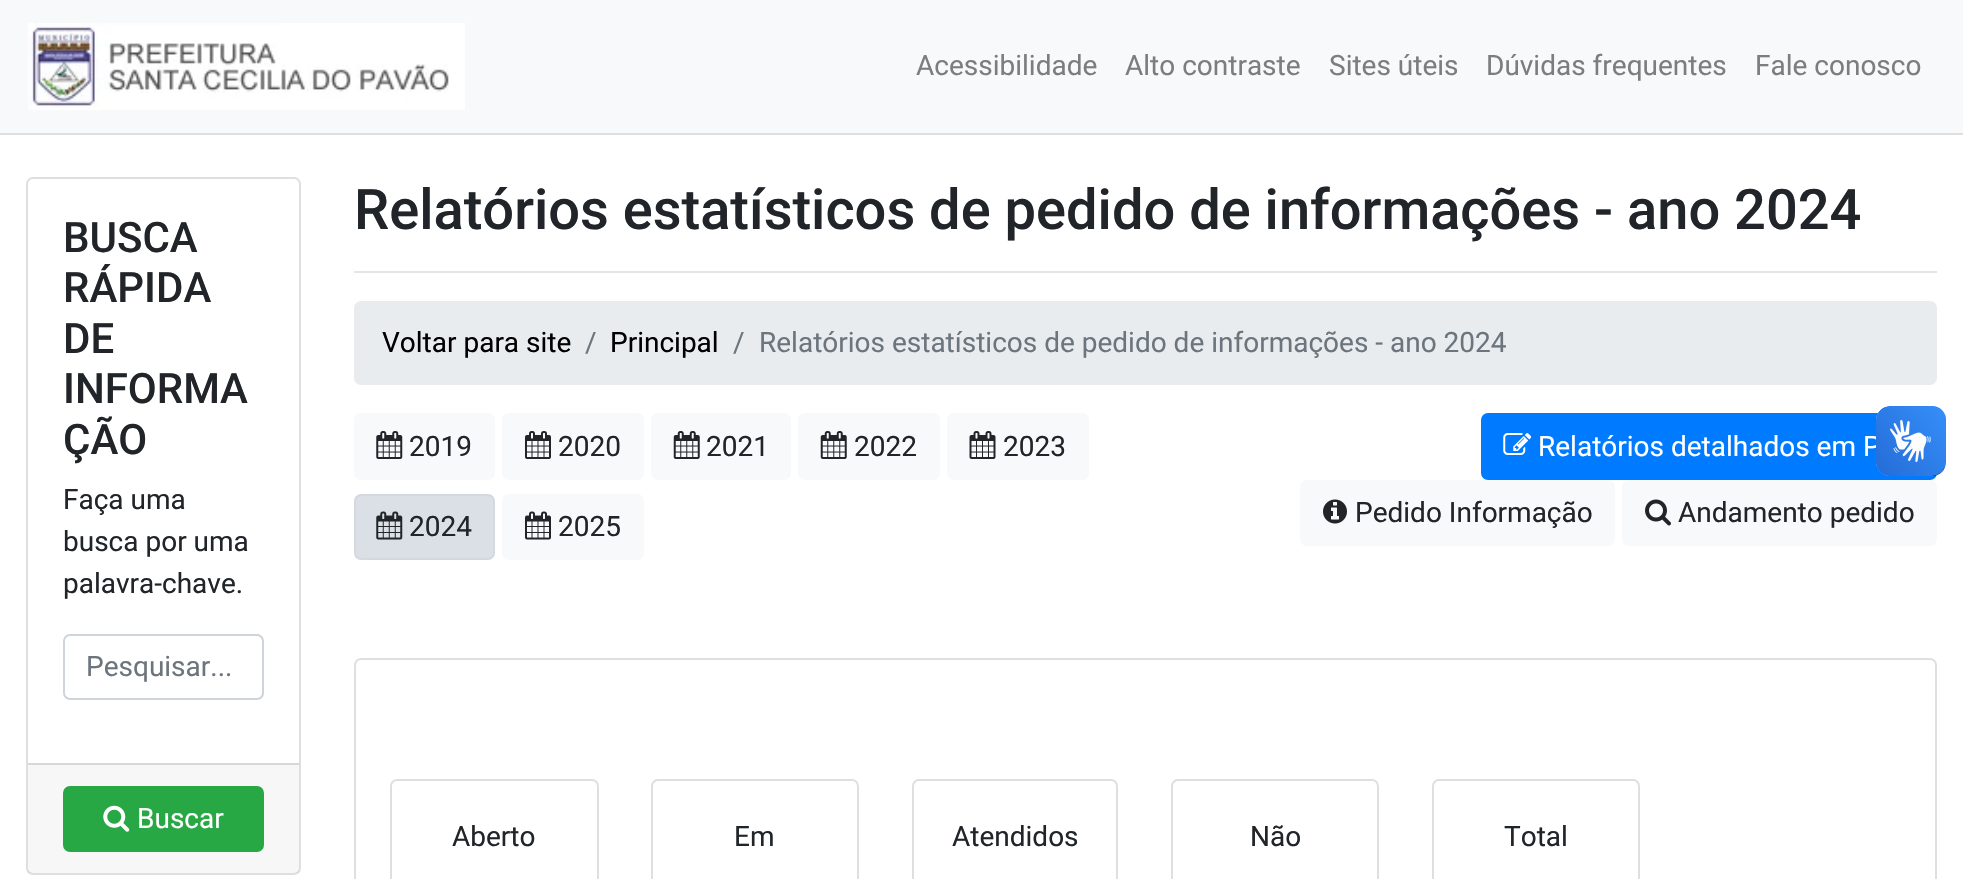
void draw(SkCanvas* canvas) {
	SkPaint paint;
	paint.setAntiAlias(true);
	canvas->clear(0xffffffff);
	paint.setColor(0xfff8f9fa);
	canvas->drawRect(SkRect::MakeXYWH(0, 0, 1963, 133), paint);
	paint.setColor(0xffdfdfdf);
	canvas->drawRect(SkRect::MakeXYWH(0, 133, 1963, 2), paint);
	canvas->drawImageRect(SkImages::DeferredFromEncodedData(SkData::MakeFromFileName("img1.png")), SkRect::MakeXYWH(28, 23, 437, 87), SkSamplingOptions());
	SkFont f1(fontMgr->matchFamilyStyle("Roboto", SkFontStyle::Normal()), 28);
	f1.setSubpixel(true);
	paint.setColor(0xff7c7d7d);
	canvas->drawString("Acessibilidade", 916, 75, f1, paint);
	canvas->drawString("Alto contraste", 1125, 75, f1, paint);
	canvas->drawString("Sites úteis", 1329, 75, f1, paint);
	canvas->drawString("Dúvidas frequentes", 1486, 75, f1, paint);
	canvas->drawString("Fale conosco", 1755, 75, f1, paint);
	paint.setStroke(true);
	paint.setStrokeWidth(2);
	paint.setColor(0xffdfdfdf);
	canvas->drawRoundRect(SkRect::MakeXYWH(27, 178, 273, 696), 6, 6, paint);
	SkFont f2(fontMgr->matchFamilyStyle("Roboto", SkFontStyle(500, SkFontStyle::kNormal_Width, SkFontStyle::kUpright_Slant)), 42);
	f2.setSubpixel(true);
	paint.setStroke(false);
	paint.setColor(0xff212529);
	canvas->drawString("BUSCA", 63, 252, f2, paint);
	canvas->drawString("RÁPIDA", 63, 302, f2, paint);
	canvas->drawString("DE", 63, 353, f2, paint);
	canvas->drawString("INFORMA", 63, 403, f2, paint);
	canvas->drawString("ÇÃO", 63, 454, f2, paint);
	canvas->drawString("Faça uma", 63, 509, f1, paint);
	canvas->drawString("busca por uma", 63, 551, f1, paint);
	canvas->drawString("palavra-chave.", 63, 593, f1, paint);
	paint.setStroke(true);
	paint.setColor(0xffced4da);
	canvas->drawRoundRect(SkRect::MakeXYWH(64, 635, 199, 64), 6, 6, paint);
	paint.setStroke(false);
	paint.setColor(0xff6c757d);
	canvas->drawString("Pesquisar...", 86, 676, f1, paint);
	paint.setColor(0x08000000);
	canvas->drawRect(SkRect::MakeXYWH(28, 765, 271, 108), paint);
	paint.setColor(0xffd8d8d8);
	canvas->drawRect(SkRect::MakeXYWH(28, 763, 271, 2), paint);
	paint.setColor(0xff28a745);
	canvas->drawRoundRect(SkRect::MakeXYWH(64, 787, 199, 64), 6, 6, paint);
	paint.setStroke(true);
	canvas->drawRoundRect(SkRect::MakeXYWH(64, 787, 199, 64), 6, 6, paint);
	canvas->drawImageRect(SkImages::DeferredFromEncodedData(SkData::MakeFromFileName("img2.png")), SkRect::MakeXYWH(103, 805, 27, 27), SkSamplingOptions());
	paint.setStroke(false);
	paint.setColor(0xffffffff);
	canvas->drawString("Buscar", 137, 828, f1, paint);
	SkFont f3(fontMgr->matchFamilyStyle("Roboto", SkFontStyle(500, SkFontStyle::kNormal_Width, SkFontStyle::kUpright_Slant)), 56);
	f3.setSubpixel(true);
	paint.setColor(0xff212529);
	canvas->drawString("Relatórios estatísticos de pedido de informações - ano 2024", 354, 229, f3, paint);
	paint.setColor(0xffe6e6e6);
	canvas->drawRect(SkRect::MakeXYWH(354, 271, 1583, 2), paint);
	paint.setColor(0xffe9ecef);
	canvas->drawRoundRect(SkRect::MakeXYWH(354, 301, 1583, 84), 7, 7, paint);
	paint.setColor(0xff000000);
	canvas->drawString("Voltar para site", 382, 352, f1, paint);
	paint.setColor(0xff6c757d);
	canvas->drawString("/", 585, 352, f1, paint);
	paint.setColor(0xff000000);
	canvas->drawString("Principal", 610, 352, f1, paint);
	paint.setColor(0xff6c757d);
	canvas->drawString("/", 733, 352, f1, paint);
	canvas->drawString("Relatórios estatísticos de pedido de informações - ano 2024", 759, 352, f1, paint);
	paint.setColor(0xfff8f9fa);
	canvas->drawRoundRect(SkRect::MakeXYWH(354, 413, 141, 67), 7, 7, paint);
	canvas->drawImageRect(SkImages::DeferredFromEncodedData(SkData::MakeFromFileName("img3.png")), SkRect::MakeXYWH(376, 431, 27, 28), SkSamplingOptions());
	paint.setColor(0xff212529);
	canvas->drawString("2019", 409, 456, f1, paint);
	paint.setColor(0xfff8f9fa);
	canvas->drawRoundRect(SkRect::MakeXYWH(502, 413, 142, 67), 7, 7, paint);
	canvas->drawImageRect(SkImages::DeferredFromEncodedData(SkData::MakeFromFileName("img4.png")), SkRect::MakeXYWH(525, 431, 26, 28), SkSamplingOptions());
	paint.setColor(0xff212529);
	canvas->drawString("2020", 558, 456, f1, paint);
	paint.setColor(0xfff8f9fa);
	canvas->drawRoundRect(SkRect::MakeXYWH(651, 413, 140, 67), 7, 7, paint);
	canvas->drawImageRect(SkImages::DeferredFromEncodedData(SkData::MakeFromFileName("img5.png")), SkRect::MakeXYWH(673, 431, 27, 28), SkSamplingOptions());
	paint.setColor(0xff212529);
	canvas->drawString("2021", 706, 456, f1, paint);
	paint.setColor(0xfff8f9fa);
	canvas->drawRoundRect(SkRect::MakeXYWH(798, 413, 142, 67), 7, 7, paint);
	canvas->drawImageRect(SkImages::DeferredFromEncodedData(SkData::MakeFromFileName("img5.png")), SkRect::MakeXYWH(820, 431, 27, 28), SkSamplingOptions());
	paint.setColor(0xff212529);
	canvas->drawString("2022", 854, 456, f1, paint);
	paint.setColor(0xfff8f9fa);
	canvas->drawRoundRect(SkRect::MakeXYWH(947, 413, 142, 67), 7, 7, paint);
	canvas->drawImageRect(SkImages::DeferredFromEncodedData(SkData::MakeFromFileName("img6.png")), SkRect::MakeXYWH(969, 431, 27, 28), SkSamplingOptions());
	paint.setColor(0xff212529);
	canvas->drawString("2023", 1003, 456, f1, paint);
	paint.setColor(0xffdae0e5);
	canvas->drawRoundRect(SkRect::MakeXYWH(355, 495, 139, 64), 6, 6, paint);
	paint.setStroke(true);
	paint.setColor(0xffd3d9df);
	canvas->drawRoundRect(SkRect::MakeXYWH(355, 495, 139, 64), 6, 6, paint);
	canvas->drawImageRect(SkImages::DeferredFromEncodedData(SkData::MakeFromFileName("img7.png")), SkRect::MakeXYWH(376, 511, 27, 29), SkSamplingOptions());
	paint.setStroke(false);
	paint.setColor(0xff212529);
	canvas->drawString("2024", 409, 536, f1, paint);
	paint.setColor(0xfff8f9fa);
	canvas->drawRoundRect(SkRect::MakeXYWH(502, 494, 142, 66), 7, 7, paint);
	canvas->drawImageRect(SkImages::DeferredFromEncodedData(SkData::MakeFromFileName("img8.png")), SkRect::MakeXYWH(525, 511, 26, 29), SkSamplingOptions());
	paint.setColor(0xff212529);
	canvas->drawString("2025", 558, 536, f1, paint);
	paint.setColor(0xff007bff);
	canvas->drawRoundRect(SkRect::MakeXYWH(1482, 414, 454, 65), 6, 6, paint);
	paint.setStroke(true);
	canvas->drawRoundRect(SkRect::MakeXYWH(1482, 414, 454, 65), 6, 6, paint);
	canvas->drawImageRect(SkImages::DeferredFromEncodedData(SkData::MakeFromFileName("img9.png")), SkRect::MakeXYWH(1503, 433, 29, 22), SkSamplingOptions());
	paint.setStroke(false);
	paint.setColor(0xffffffff);
	canvas->drawString("Relatórios detalhados em P", 1538, 456, f1, paint);
	paint.setColor(0xfff8f9fa);
	canvas->drawRoundRect(SkRect::MakeXYWH(1300, 480, 315, 66), 7, 7, paint);
	canvas->drawImageRect(SkImages::DeferredFromEncodedData(SkData::MakeFromFileName("img10.png")), SkRect::MakeXYWH(1323, 499, 24, 25), SkSamplingOptions());
	paint.setColor(0xff212529);
	canvas->drawString("Pedido Informação", 1355, 522, f1, paint);
	paint.setColor(0xfff8f9fa);
	canvas->drawRoundRect(SkRect::MakeXYWH(1622, 480, 315, 66), 7, 7, paint);
	canvas->drawImageRect(SkImages::DeferredFromEncodedData(SkData::MakeFromFileName("img11.png")), SkRect::MakeXYWH(1645, 499, 26, 27), SkSamplingOptions());
	paint.setColor(0xff212529);
	canvas->drawString("Andamento pedido", 1678, 522, f1, paint);
	paint.setStroke(true);
	paint.setColor(0xffdfdfdf);
	canvas->drawRoundRect(SkRect::MakeXYWH(355, 659, 1581, 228), 6, 6, paint);
	canvas->drawRoundRect(SkRect::MakeXYWH(391, 780, 207, 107), 6, 6, paint);
	paint.setStroke(false);
	paint.setColor(0xff212529);
	canvas->drawString("Aberto", 452, 846, f1, paint);
	paint.setStroke(true);
	paint.setColor(0xffdfdfdf);
	canvas->drawRoundRect(SkRect::MakeXYWH(652, 780, 206, 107), 6, 6, paint);
	paint.setStroke(false);
	paint.setColor(0xff212529);
	canvas->drawString("Em", 734, 846, f1, paint);
	paint.setStroke(true);
	paint.setColor(0xffdfdfdf);
	canvas->drawRoundRect(SkRect::MakeXYWH(913, 780, 204, 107), 6, 6, paint);
	paint.setStroke(false);
	paint.setColor(0xff212529);
	canvas->drawString("Atendidos", 952, 846, f1, paint);
	paint.setStroke(true);
	paint.setColor(0xffdfdfdf);
	canvas->drawRoundRect(SkRect::MakeXYWH(1172, 780, 206, 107), 6, 6, paint);
	paint.setStroke(false);
	paint.setColor(0xff212529);
	canvas->drawString("Não", 1250, 846, f1, paint);
	paint.setStroke(true);
	paint.setColor(0xffdfdfdf);
	canvas->drawRoundRect(SkRect::MakeXYWH(1433, 780, 206, 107), 6, 6, paint);
	paint.setStroke(false);
	paint.setColor(0xff212529);
	canvas->drawString("Total", 1504, 846, f1, paint);
	canvas->drawImageRect(SkImages::DeferredFromEncodedData(SkData::MakeFromFileName("img12.png")), SkRect::MakeXYWH(1876, 406, 70, 70), SkSamplingOptions());
	canvas->drawImageRect(SkImages::DeferredFromEncodedData(SkData::MakeFromFileName("img13.png")), SkRect::MakeXYWH(1876, 406, 70, 70), SkSamplingOptions());
}
